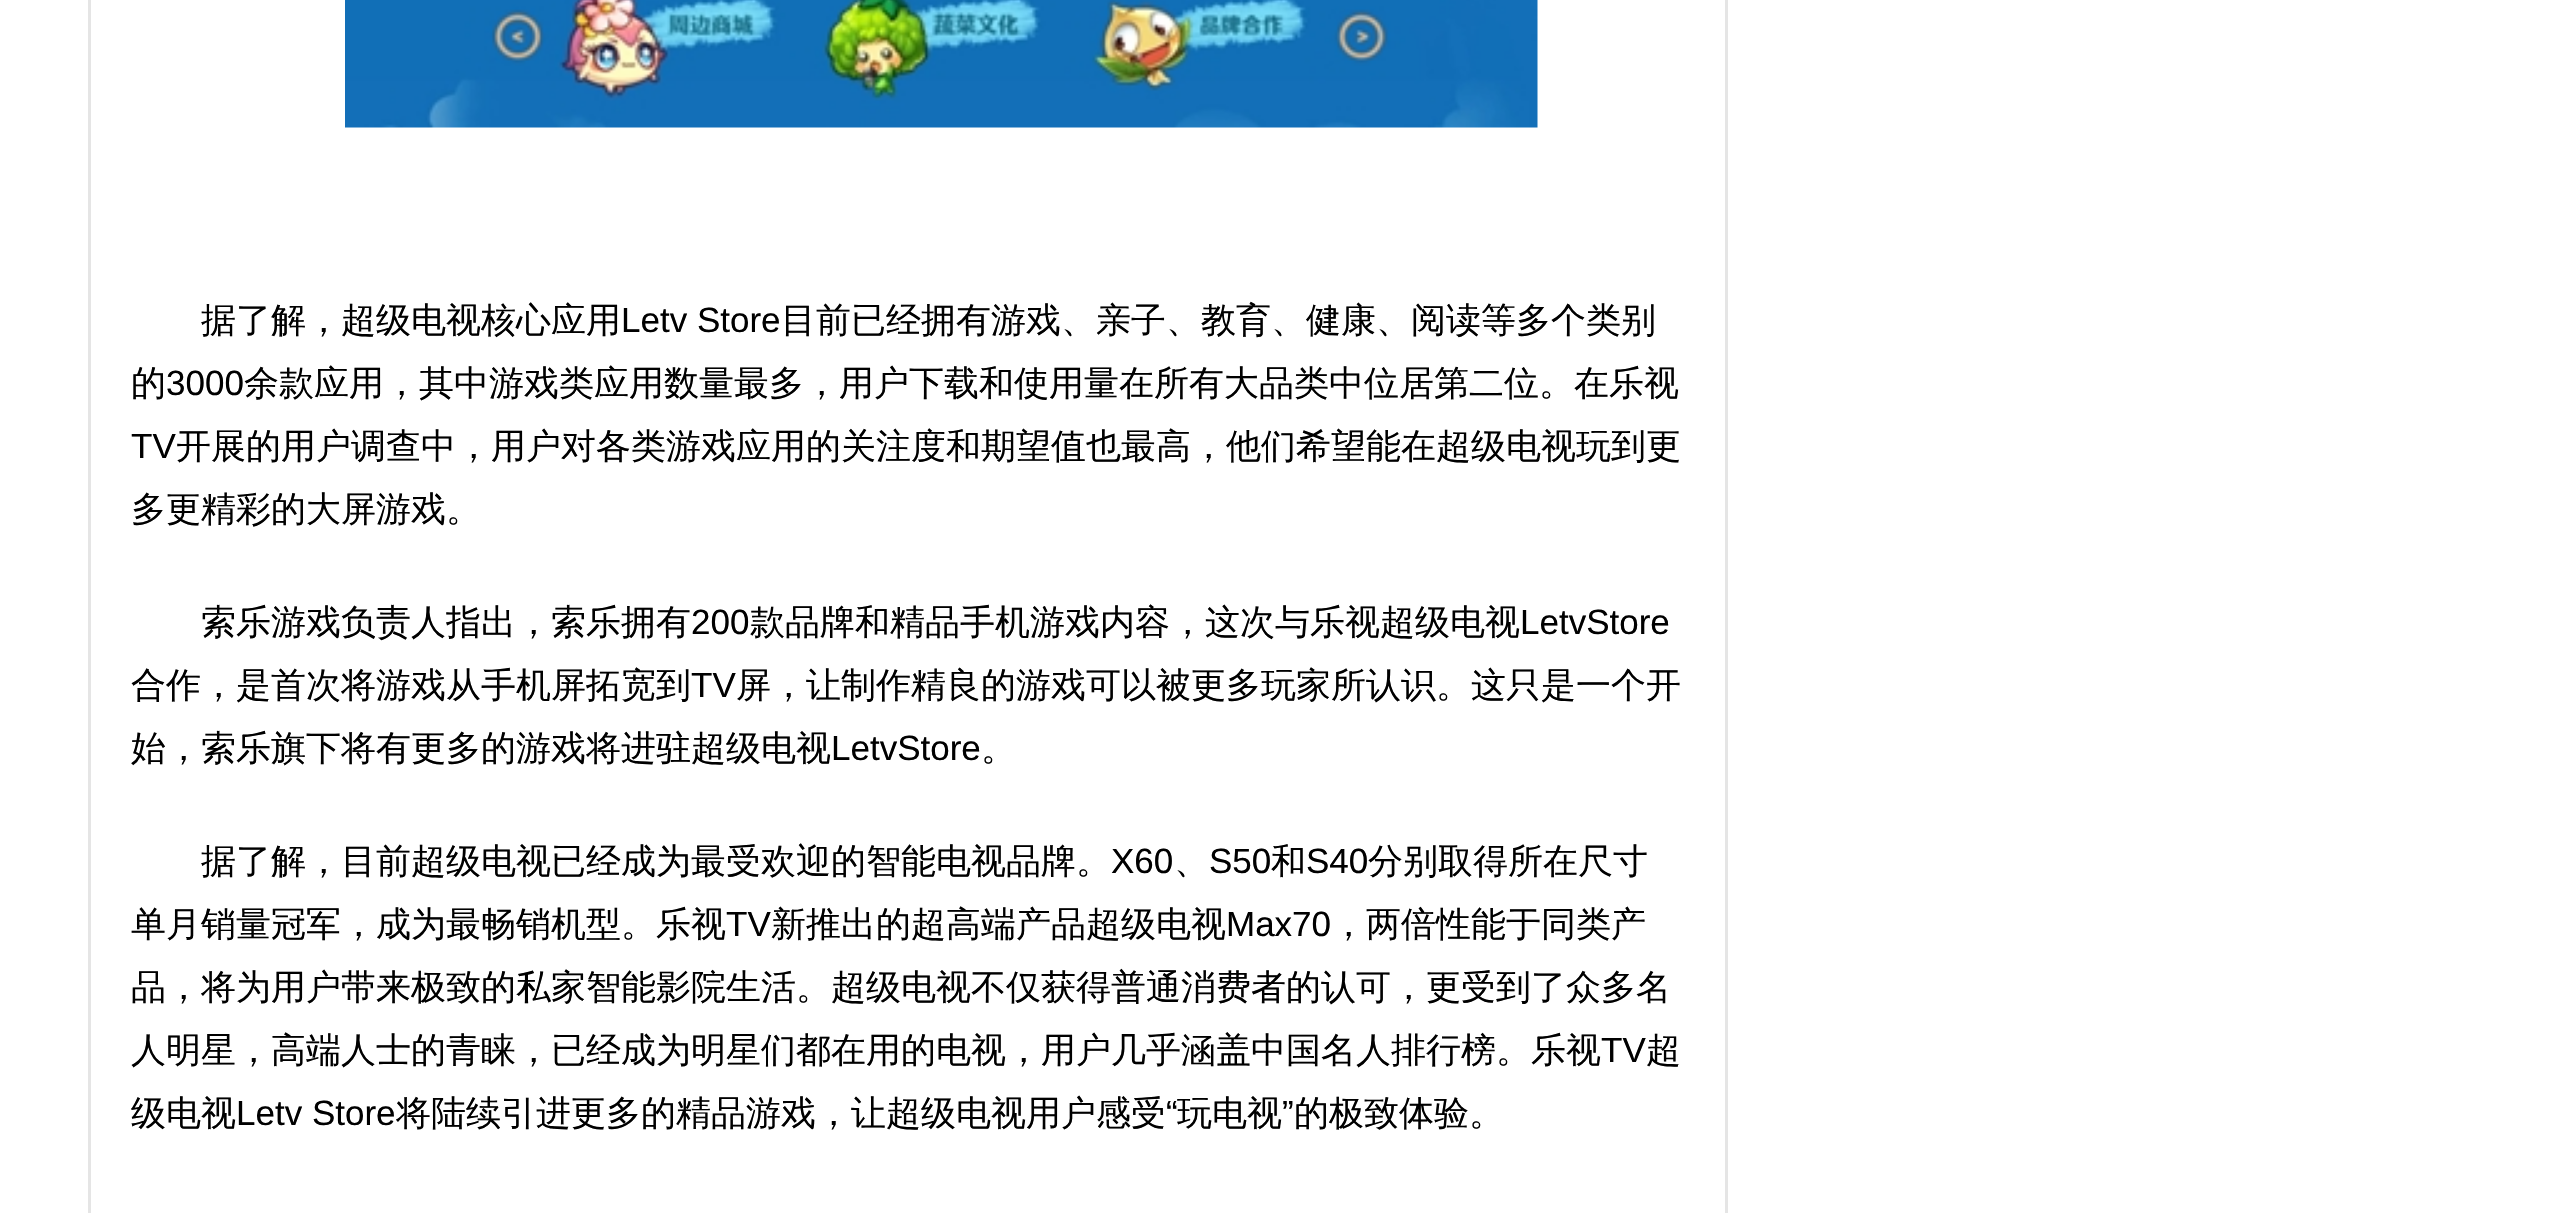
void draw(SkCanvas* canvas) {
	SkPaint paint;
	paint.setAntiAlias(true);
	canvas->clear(0xffffffff);
	paint.setStroke(true);
	paint.setStrokeWidth(3);
	paint.setColor(0xffe5e5e5);
	canvas->drawRect(SkRect::MakeXYWH(89.5, -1.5, 1637, 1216), paint);
	canvas->drawImageRect(SkImages::DeferredFromEncodedData(SkData::MakeFromFileName("img1.png")), SkRect::MakeXYWH(345, 0, 1193, 128), SkSamplingOptions());
	SkFont f1(fontMgr->matchFamilyStyle("WenQuanYi Zen Hei", SkFontStyle(500, SkFontStyle::kNormal_Width, SkFontStyle::kUpright_Slant)), 35);
	f1.setSubpixel(true);
	paint.setStroke(false);
	paint.setColor(0xff000000);
	canvas->drawString("据了解，超级电视核心应用", 201, 332, f1, paint);
	SkFont f2(fontMgr->matchFamilyStyle("Liberation Sans", SkFontStyle::Normal()), 35);
	f2.setSubpixel(true);
	canvas->drawString("Letv Store", 621, 332, f2, paint);
	canvas->drawString("目前已经拥有游戏、亲子、教育、健康、阅读等多个类别", 781, 332, f1, paint);
	canvas->drawString("的", 131, 395, f1, paint);
	canvas->drawString("3000", 166, 395, f2, paint);
	canvas->drawString("余款应用，其中游戏类应用数量最多，用户下载和使用量在所有大品类中位居第二位。在乐视", 244, 395, f1, paint);
	canvas->drawString("TV", 131, 458, f2, paint);
	canvas->drawString("开展的用户调查中，用户对各类游戏应用的关注度和期望值也最高，他们希望能在超级电视玩到更", 176, 458, f1, paint);
	canvas->drawString("多更精彩的大屏游戏。", 131, 521, f1, paint);
	canvas->drawString("索乐游戏负责人指出，索乐拥有", 201, 634, f1, paint);
	canvas->drawString("200", 691, 634, f2, paint);
	canvas->drawString("款品牌和精品手机游戏内容，这次与乐视超级电视", 750, 634, f1, paint);
	canvas->drawString("LetvStore", 1520, 634, f2, paint);
	canvas->drawString("合作，是首次将游戏从手机屏拓宽到", 131, 697, f1, paint);
	canvas->drawString("TV", 691, 697, f2, paint);
	canvas->drawString("屏，让制作精良的游戏可以被更多玩家所认识。这只是一个开", 736, 697, f1, paint);
	canvas->drawString("始，索乐旗下将有更多的游戏将进驻超级电视", 131, 760, f1, paint);
	canvas->drawString("LetvStore", 831, 760, f2, paint);
	canvas->drawString("。", 981, 760, f1, paint);
	canvas->drawString("据了解，目前超级电视已经成为最受欢迎的智能电视品牌。", 201, 873, f1, paint);
	canvas->drawString("X60", 1111, 873, f2, paint);
	canvas->drawString("、", 1174, 873, f1, paint);
	canvas->drawString("S50", 1209, 873, f2, paint);
	canvas->drawString("和", 1271, 873, f1, paint);
	canvas->drawString("S40", 1306, 873, f2, paint);
	canvas->drawString("分别取得所在尺寸", 1368, 873, f1, paint);
	canvas->drawString("单月销量冠军，成为最畅销机型。乐视", 131, 936, f1, paint);
	canvas->drawString("TV", 726, 936, f2, paint);
	canvas->drawString("新推出的超高端产品超级电视", 771, 936, f1, paint);
	canvas->drawString("Max70", 1226, 936, f2, paint);
	canvas->drawString("，两倍性能于同类产", 1331, 936, f1, paint);
	canvas->drawString("品，将为用户带来极致的私家智能影院生活。超级电视不仅获得普通消费者的认可，更受到了众多名", 131, 999, f1, paint);
	canvas->drawString("人明星，高端人士的青睐，已经成为明星们都在用的电视，用户几乎涵盖中国名人排行榜。乐视", 131, 1062, f1, paint);
	canvas->drawString("TV", 1601, 1062, f2, paint);
	canvas->drawString("超", 1646, 1062, f1, paint);
	canvas->drawString("级电视", 131, 1125, f1, paint);
	canvas->drawString("Letv Store", 236, 1125, f2, paint);
	canvas->drawString("将陆续引进更多的精品游戏，让超级电视用户感受", 396, 1125, f1, paint);
	canvas->drawString("“", 1166, 1125, f2, paint);
	canvas->drawString("玩电视", 1177, 1125, f1, paint);
	canvas->drawString("”", 1282, 1125, f2, paint);
	canvas->drawString("的极致体验。", 1294, 1125, f1, paint);
}
